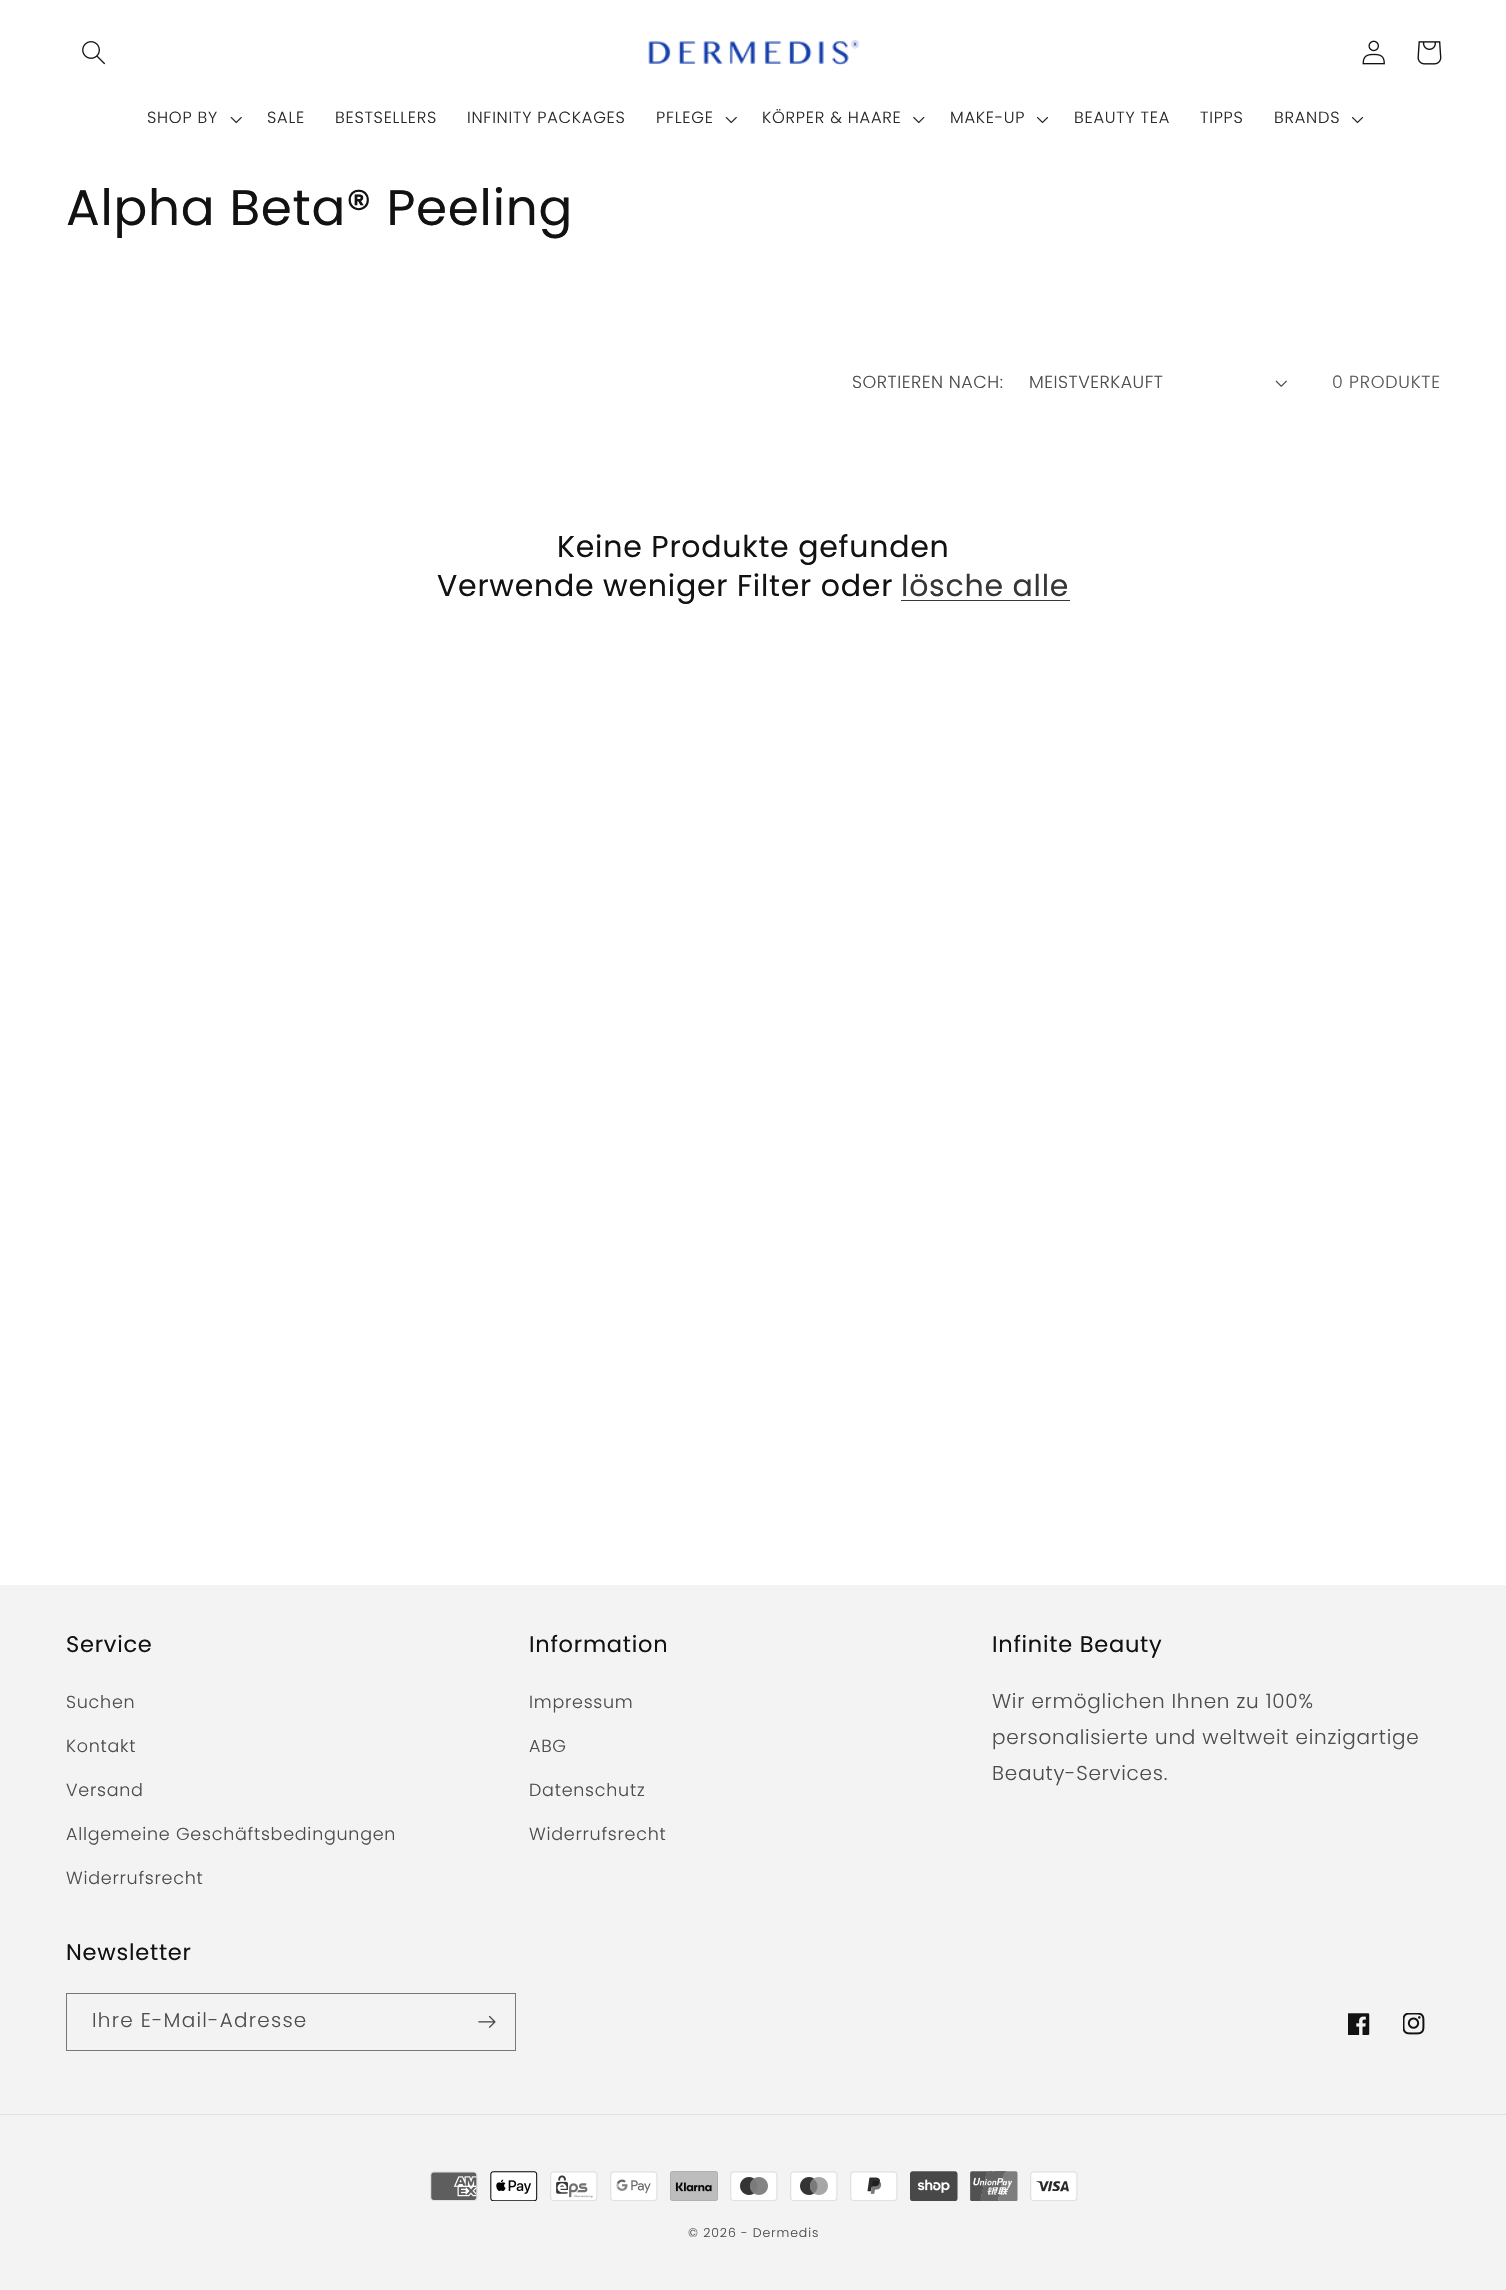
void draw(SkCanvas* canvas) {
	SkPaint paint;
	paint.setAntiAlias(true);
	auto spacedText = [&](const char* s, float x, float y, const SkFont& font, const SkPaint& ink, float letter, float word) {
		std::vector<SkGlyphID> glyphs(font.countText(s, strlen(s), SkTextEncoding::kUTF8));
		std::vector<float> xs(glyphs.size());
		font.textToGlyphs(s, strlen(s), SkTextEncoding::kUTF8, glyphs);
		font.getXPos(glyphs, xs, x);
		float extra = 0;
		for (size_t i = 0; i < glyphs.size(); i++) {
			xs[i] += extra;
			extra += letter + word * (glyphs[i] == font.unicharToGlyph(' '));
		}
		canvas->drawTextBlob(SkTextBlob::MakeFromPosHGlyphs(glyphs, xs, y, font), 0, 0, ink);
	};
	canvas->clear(0xffffffff);
	canvas->drawImageRect(SkImages::DeferredFromEncodedData(SkData::MakeFromFileName("img1.png")), SkRect::MakeXYWH(82, 41, 23, 24), SkSamplingOptions());
	canvas->drawImageRect(SkImages::DeferredFromEncodedData(SkData::MakeFromFileName("img2.png")), SkRect::MakeXYWH(648, 40, 212, 25), SkSamplingOptions());
	canvas->drawImageRect(SkImages::DeferredFromEncodedData(SkData::MakeFromFileName("img3.png")), SkRect::MakeXYWH(1362, 40, 23, 25), SkSamplingOptions());
	canvas->drawImageRect(SkImages::DeferredFromEncodedData(SkData::MakeFromFileName("img4.png")), SkRect::MakeXYWH(1417, 41, 25, 24), SkSamplingOptions());
	SkFont f1(fontMgr->matchFamilyStyle("Poppins", SkFontStyle(300, SkFontStyle::kNormal_Width, SkFontStyle::kUpright_Slant)), 16.25);
	f1.setSubpixel(true);
	paint.setColor(0xff2a2a2a);
	spacedText("SHOP BY", 147, 123, f1, paint, 0.75, 0);
	canvas->drawImageRect(SkImages::DeferredFromEncodedData(SkData::MakeFromFileName("img5.png")), SkRect::MakeXYWH(230, 116, 12, 8), SkSamplingOptions());
	spacedText("SALE", 267, 123, f1, paint, 0.75, 0);
	spacedText("BESTSELLERS", 335, 123, f1, paint, 0.75, 0);
	spacedText("INFINITY PACKAGES", 467, 123, f1, paint, 0.75, 0);
	spacedText("PFLEGE", 656, 123, f1, paint, 0.75, 0);
	canvas->drawImageRect(SkImages::DeferredFromEncodedData(SkData::MakeFromFileName("img5.png")), SkRect::MakeXYWH(725, 116, 12, 8), SkSamplingOptions());
	spacedText("KÖRPER & HAARE", 762, 123, f1, paint, 0.75, 0);
	canvas->drawImageRect(SkImages::DeferredFromEncodedData(SkData::MakeFromFileName("img6.png")), SkRect::MakeXYWH(913, 116, 12, 8), SkSamplingOptions());
	spacedText("MAKE-UP", 950, 123, f1, paint, 0.75, 0);
	canvas->drawImageRect(SkImages::DeferredFromEncodedData(SkData::MakeFromFileName("img7.png")), SkRect::MakeXYWH(1036, 116, 13, 8), SkSamplingOptions());
	spacedText("BEAUTY TEA", 1074, 123, f1, paint, 0.75, 0);
	spacedText("TIPPS", 1200, 123, f1, paint, 0.75, 0);
	spacedText("BRANDS", 1274, 123, f1, paint, 0.75, 0);
	canvas->drawImageRect(SkImages::DeferredFromEncodedData(SkData::MakeFromFileName("img7.png")), SkRect::MakeXYWH(1351, 116, 13, 8), SkSamplingOptions());
	SkFont f2(fontMgr->matchFamilyStyle("Poppins", SkFontStyle::Normal()), 50);
	f2.setSubpixel(true);
	paint.setColor(0xff121212);
	spacedText("Alpha Beta® Peeling", 66, 225, f2, paint, 0.75, 0);
	SkFont f3(fontMgr->matchFamilyStyle("Poppins", SkFontStyle(300, SkFontStyle::kNormal_Width, SkFontStyle::kUpright_Slant)), 17.5);
	f3.setSubpixel(true);
	paint.setColor(0xff4d4d4d);
	spacedText("SORTIEREN NACH:", 852, 388, f3, paint, 0.5, 0);
	spacedText("MEISTVERKAUFT", 1029, 388, f3, paint, 0.5, 0);
	canvas->drawImageRect(SkImages::DeferredFromEncodedData(SkData::MakeFromFileName("img8.png")), SkRect::MakeXYWH(1275, 380, 12, 7), SkSamplingOptions());
	paint.setColor(0xff595959);
	spacedText("0 PRODUKTE", 1332, 388, f3, paint, 0.75, 0);
	SkFont f4(fontMgr->matchFamilyStyle("Poppins", SkFontStyle::Normal()), 30);
	f4.setSubpixel(true);
	paint.setColor(0xff121212);
	spacedText("Keine Produkte gefunden", 557, 557, f4, paint, 0.75, 0);
	spacedText("Verwende weniger Filter oder", 437, 596, f4, paint, 0.75, 0);
	paint.setColor(0xff363636);
	spacedText("lösche alle", 901, 596, f4, paint, 0.75, 0);
	canvas->drawRect(SkRect::MakeXYWH(901, 600, 169, 1), paint);
	paint.setColor(0xfff3f3f3);
	canvas->drawRect(SkRect::MakeXYWH(0, 1585, 1506, 705), paint);
	SkFont f5(fontMgr->matchFamilyStyle("Poppins", SkFontStyle::Normal()), 22.5);
	f5.setSubpixel(true);
	paint.setColor(0xff121212);
	spacedText("Service", 66, 1652, f5, paint, 0.75, 0);
	paint.setColor(0xff4d4d4d);
	spacedText("Suchen", 66, 1708, f3, paint, 0.75, 0);
	spacedText("Kontakt", 66, 1752, f3, paint, 0.75, 0);
	spacedText("Versand", 66, 1796, f3, paint, 0.75, 0);
	spacedText("Allgemeine Geschäftsbedingungen", 66, 1840, f3, paint, 0.75, 0);
	spacedText("Widerrufsrecht", 66, 1884, f3, paint, 0.75, 0);
	paint.setColor(0xff121212);
	spacedText("Information", 529, 1652, f5, paint, 0.75, 0);
	paint.setColor(0xff4d4d4d);
	spacedText("Impressum", 529, 1708, f3, paint, 0.75, 0);
	spacedText("ABG", 529, 1752, f3, paint, 0.75, 0);
	spacedText("Datenschutz", 529, 1796, f3, paint, 0.75, 0);
	spacedText("Widerrufsrecht", 529, 1840, f3, paint, 0.75, 0);
	paint.setColor(0xff121212);
	spacedText("Infinite Beauty", 992, 1652, f5, paint, 0.75, 0);
	SkFont f6(fontMgr->matchFamilyStyle("Poppins", SkFontStyle(300, SkFontStyle::kNormal_Width, SkFontStyle::kUpright_Slant)), 20);
	f6.setSubpixel(true);
	paint.setColor(0xff4d4d4d);
	spacedText("Wir ermöglichen Ihnen zu 100%", 992, 1708, f6, paint, 0.75, 0);
	spacedText("personalisierte und weltweit einzigartige", 992, 1744, f6, paint, 0.75, 0);
	spacedText("Beauty-Services.", 992, 1780, f6, paint, 0.75, 0);
	paint.setColor(0xff121212);
	spacedText("Newsletter", 66, 1960, f5, paint, 0.75, 0);
	paint.setStroke(true);
	paint.setStrokeWidth(1);
	paint.setColor(0xff777777);
	canvas->drawRect(SkRect::MakeXYWH(66.5, 1993.5, 449, 57), paint);
	paint.setStroke(false);
	paint.setColor(0xff4d4d4d);
	spacedText("Ihre E-Mail-Adresse", 92, 2027, f6, paint, 1.25, 0);
	canvas->drawImageRect(SkImages::DeferredFromEncodedData(SkData::MakeFromFileName("img9.png")), SkRect::MakeXYWH(478, 2015, 18, 13), SkSamplingOptions());
	canvas->drawImageRect(SkImages::DeferredFromEncodedData(SkData::MakeFromFileName("img10.png")), SkRect::MakeXYWH(1348, 2013, 22, 22), SkSamplingOptions());
	canvas->drawImageRect(SkImages::DeferredFromEncodedData(SkData::MakeFromFileName("img11.png")), SkRect::MakeXYWH(1403, 2013, 22, 22), SkSamplingOptions());
	paint.setColor(0xffe1e1e1);
	canvas->drawRect(SkRect::MakeXYWH(0, 2114, 1506, 1), paint);
	canvas->drawImageRect(SkImages::DeferredFromEncodedData(SkData::MakeFromFileName("img12.png")), SkRect::MakeXYWH(430, 2171, 48, 30), SkSamplingOptions());
	canvas->drawImageRect(SkImages::DeferredFromEncodedData(SkData::MakeFromFileName("img13.png")), SkRect::MakeXYWH(490, 2171, 48, 30), SkSamplingOptions());
	canvas->drawImageRect(SkImages::DeferredFromEncodedData(SkData::MakeFromFileName("img14.png")), SkRect::MakeXYWH(550, 2171, 48, 30), SkSamplingOptions());
	canvas->drawImageRect(SkImages::DeferredFromEncodedData(SkData::MakeFromFileName("img15.png")), SkRect::MakeXYWH(610, 2171, 48, 30), SkSamplingOptions());
	canvas->drawImageRect(SkImages::DeferredFromEncodedData(SkData::MakeFromFileName("img16.png")), SkRect::MakeXYWH(670, 2171, 48, 30), SkSamplingOptions());
	canvas->drawImageRect(SkImages::DeferredFromEncodedData(SkData::MakeFromFileName("img17.png")), SkRect::MakeXYWH(730, 2171, 48, 30), SkSamplingOptions());
	canvas->drawImageRect(SkImages::DeferredFromEncodedData(SkData::MakeFromFileName("img18.png")), SkRect::MakeXYWH(790, 2171, 48, 30), SkSamplingOptions());
	canvas->drawImageRect(SkImages::DeferredFromEncodedData(SkData::MakeFromFileName("img19.png")), SkRect::MakeXYWH(850, 2171, 48, 30), SkSamplingOptions());
	canvas->drawImageRect(SkImages::DeferredFromEncodedData(SkData::MakeFromFileName("img20.png")), SkRect::MakeXYWH(910, 2171, 48, 30), SkSamplingOptions());
	canvas->drawImageRect(SkImages::DeferredFromEncodedData(SkData::MakeFromFileName("img21.png")), SkRect::MakeXYWH(970, 2171, 48, 30), SkSamplingOptions());
	canvas->drawImageRect(SkImages::DeferredFromEncodedData(SkData::MakeFromFileName("img22.png")), SkRect::MakeXYWH(1030, 2171, 48, 30), SkSamplingOptions());
	SkFont f7(fontMgr->matchFamilyStyle("Poppins", SkFontStyle(300, SkFontStyle::kNormal_Width, SkFontStyle::kUpright_Slant)), 12.5);
	f7.setSubpixel(true);
	paint.setColor(0xff4d4d4d);
	spacedText("© 2026 - Dermedis", 688, 2237, f7, paint, 0.9, 0);
}
